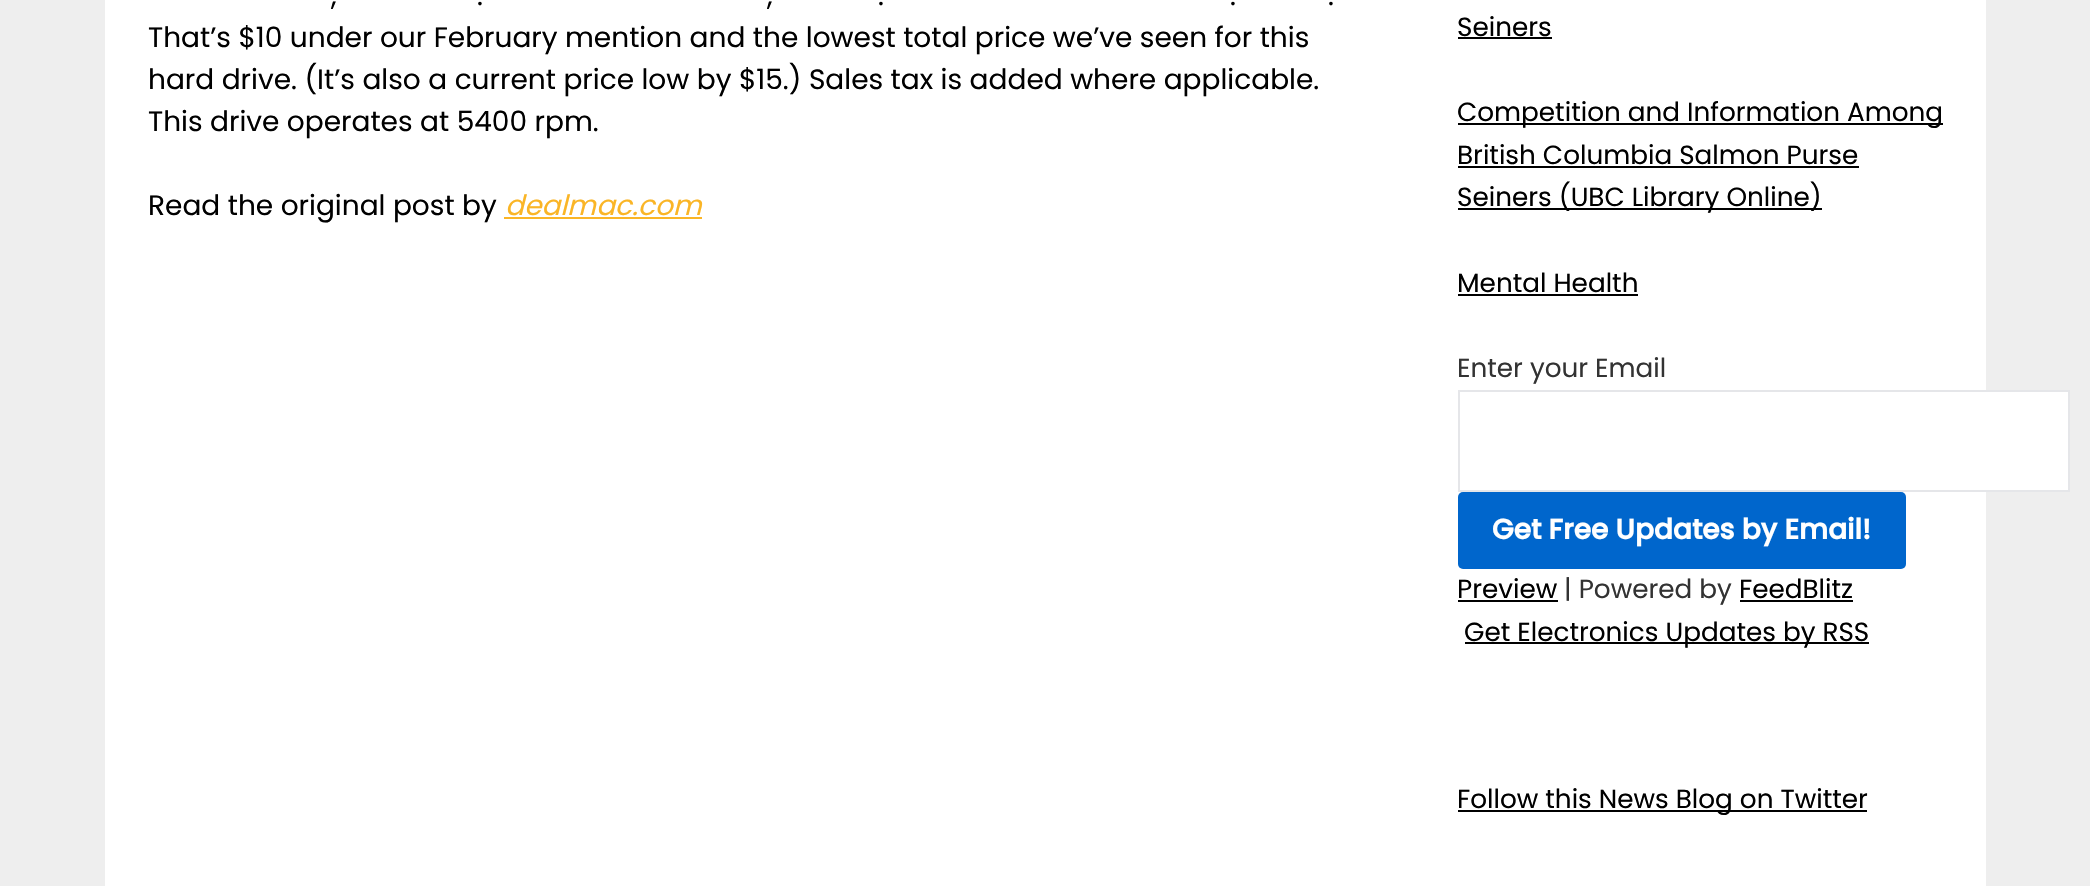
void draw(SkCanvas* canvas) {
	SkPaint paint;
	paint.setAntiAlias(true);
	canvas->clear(0xffeeeeee);
	paint.setColor(0xffffffff);
	canvas->drawRect(SkRect::MakeXYWH(105, 0, 1881, 886), paint);
	SkFont f1(fontMgr->matchFamilyStyle("Poppins", SkFontStyle::Normal()), 28);
	f1.setSubpixel(true);
	paint.setColor(0xff000000);
	canvas->drawString(",", 331, 5, f1, paint);
	canvas->drawString(".", 477, 5, f1, paint);
	canvas->drawString(",", 767, 5, f1, paint);
	canvas->drawString(".", 878, 5, f1, paint);
	canvas->drawString(".", 1230, 5, f1, paint);
	canvas->drawString(".", 1328, 5, f1, paint);
	canvas->drawString("That’s $10 under our February mention and the lowest total price we’ve seen for this", 148, 47, f1, paint);
	canvas->drawString("hard drive. (It’s also a current price low by $15.) Sales tax is added where applicable.", 148, 89, f1, paint);
	canvas->drawString("This drive operates at 5400 rpm.", 148, 131, f1, paint);
	canvas->drawString("Read the original post by", 148, 215, f1, paint);
	SkFont f2(fontMgr->matchFamilyStyle("Poppins", SkFontStyle::Italic()), 28);
	f2.setSubpixel(true);
	paint.setColor(0xfffab526);
	canvas->drawString("dealmac.com", 505, 215, f2, paint);
	canvas->drawRect(SkRect::MakeXYWH(504, 217, 198, 2), paint);
	SkFont f3(fontMgr->matchFamilyStyle("Poppins", SkFontStyle::Normal()), 26.25);
	f3.setSubpixel(true);
	paint.setColor(0xff000000);
	canvas->drawString("Seiners", 1457, 36, f3, paint);
	canvas->drawRect(SkRect::MakeXYWH(1458, 37, 94, 2), paint);
	canvas->drawRect(SkRect::MakeXYWH(1458, 123, 485, 2), paint);
	canvas->drawString("Competition and Information Among", 1457, 121, f3, paint);
	canvas->drawString("British Columbia Salmon Purse", 1457, 164, f3, paint);
	canvas->drawRect(SkRect::MakeXYWH(1458, 166, 401, 2), paint);
	canvas->drawRect(SkRect::MakeXYWH(1458, 208, 364, 2), paint);
	canvas->drawString("Seiners (UBC Library Online)", 1457, 206, f3, paint);
	canvas->drawString("Mental Health", 1457, 292, f3, paint);
	canvas->drawRect(SkRect::MakeXYWH(1458, 294, 180, 2), paint);
	paint.setColor(0xff333333);
	canvas->drawString("Enter your Email", 1457, 377, f3, paint);
	paint.setColor(0xffffffff);
	canvas->drawRect(SkRect::MakeXYWH(1986, 392, 82, 98), paint);
	paint.setStroke(true);
	paint.setStrokeWidth(2);
	paint.setColor(0xffe5e6e9);
	canvas->drawRect(SkRect::MakeXYWH(1459, 391, 610, 100), paint);
	paint.setStroke(false);
	paint.setColor(0xff0066cc);
	canvas->drawRoundRect(SkRect::MakeXYWH(1458, 492, 448, 77), 5, 5, paint);
	SkFont f4(fontMgr->matchFamilyStyle("Poppins", SkFontStyle::Bold()), 28);
	f4.setSubpixel(true);
	paint.setColor(0xffffffff);
	canvas->drawString("Get Free Updates by Email!", 1492, 539, f4, paint);
	paint.setColor(0xff000000);
	canvas->drawString("Preview", 1457, 598, f3, paint);
	canvas->drawRect(SkRect::MakeXYWH(1458, 600, 100, 2), paint);
	paint.setColor(0xff333333);
	canvas->drawString("| Powered by", 1564, 598, f3, paint);
	paint.setColor(0xff000000);
	canvas->drawString("FeedBlitz", 1739, 598, f3, paint);
	canvas->drawRect(SkRect::MakeXYWH(1740, 600, 113, 2), paint);
	canvas->drawRect(SkRect::MakeXYWH(1465, 642, 404, 2), paint);
	canvas->drawString("Get Electronics Updates by RSS", 1464, 641, f3, paint);
	canvas->drawRect(SkRect::MakeXYWH(1458, 810, 409, 2), paint);
	canvas->drawString("Follow this News Blog on Twitter", 1457, 808, f3, paint);
}
